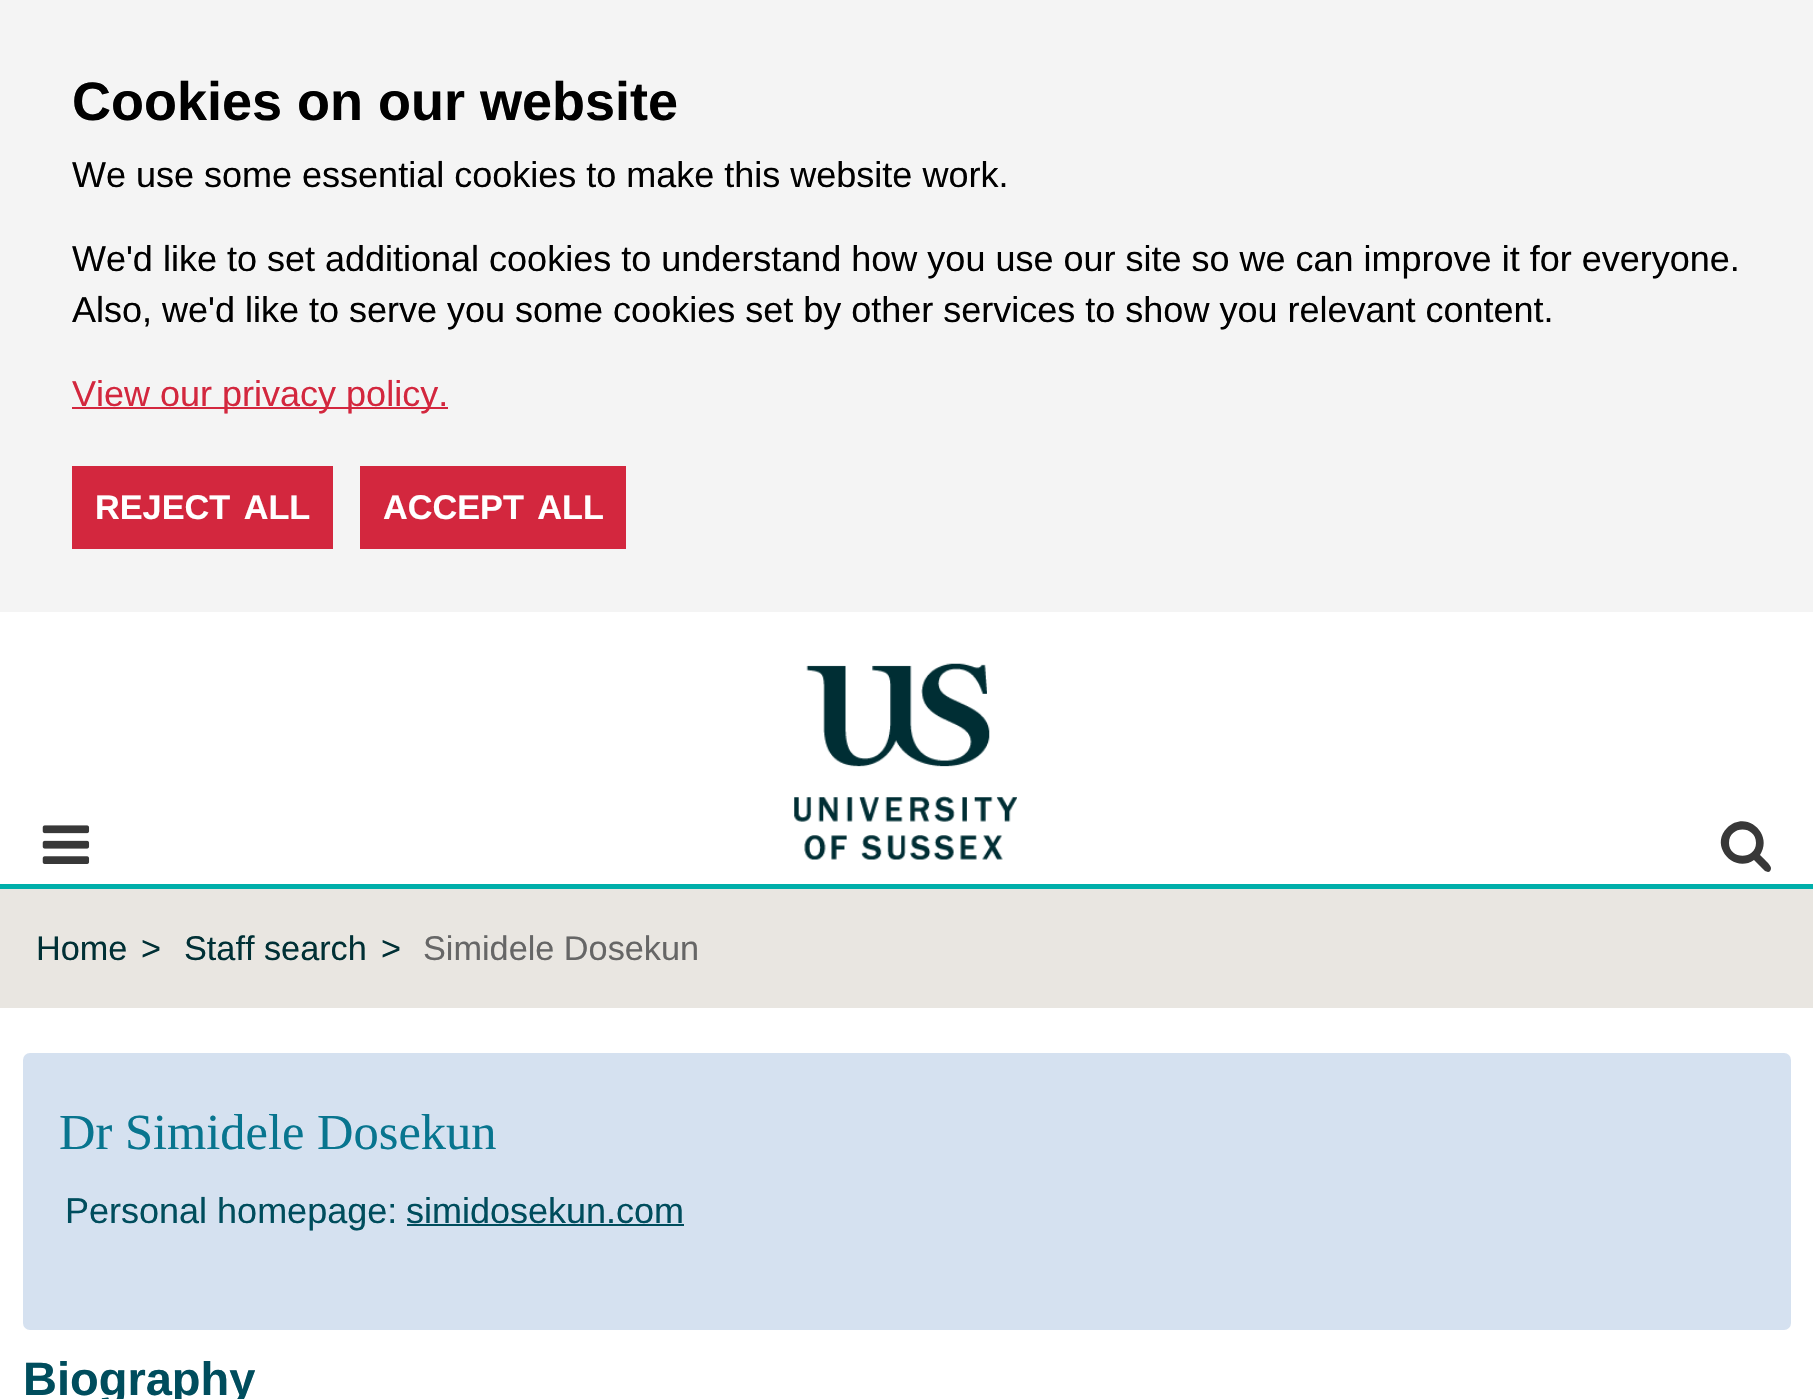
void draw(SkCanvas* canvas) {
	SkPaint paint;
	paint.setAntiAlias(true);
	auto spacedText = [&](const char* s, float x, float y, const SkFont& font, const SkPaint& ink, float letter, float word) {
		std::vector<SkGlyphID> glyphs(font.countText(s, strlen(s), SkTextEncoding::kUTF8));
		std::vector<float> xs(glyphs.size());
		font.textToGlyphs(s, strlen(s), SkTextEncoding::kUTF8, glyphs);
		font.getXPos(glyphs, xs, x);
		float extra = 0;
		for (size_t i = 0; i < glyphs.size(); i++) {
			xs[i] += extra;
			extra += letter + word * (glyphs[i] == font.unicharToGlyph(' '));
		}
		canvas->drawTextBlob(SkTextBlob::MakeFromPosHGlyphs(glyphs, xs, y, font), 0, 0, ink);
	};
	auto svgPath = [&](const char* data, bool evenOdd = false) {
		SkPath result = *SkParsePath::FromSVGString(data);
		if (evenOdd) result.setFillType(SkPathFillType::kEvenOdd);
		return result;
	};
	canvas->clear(0xffffffff);
	paint.setColor(0xfff4f4f4);
	canvas->drawRect(SkRect::MakeXYWH(0, 0, 1813, 612), paint);
	SkFont f1(fontMgr->matchFamilyStyle("Liberation Sans", SkFontStyle::Bold()), 54);
	f1.setSubpixel(true);
	paint.setColor(0xff000000);
	canvas->drawString("Cookies on our website", 72, 120, f1, paint);
	SkFont f2(fontMgr->matchFamilyStyle("Liberation Sans", SkFontStyle::Normal()), 36);
	f2.setSubpixel(true);
	canvas->drawString("We use some essential cookies to make this website work.", 72, 187, f2, paint);
	canvas->drawString("We'd like to set additional cookies to understand how you use our site so we can improve it for everyone.", 72, 271, f2, paint);
	canvas->drawString("Also, we'd like to serve you some cookies set by other services to show you relevant content.", 72, 322, f2, paint);
	paint.setColor(0xffd3273e);
	canvas->drawRect(SkRect::MakeXYWH(72, 407, 376, 2), paint);
	canvas->drawString("View our privacy policy.", 72, 406, f2, paint);
	canvas->drawRect(SkRect::MakeXYWH(72, 466, 261, 83), paint);
	SkFont f3(fontMgr->matchFamilyStyle("Liberation Sans", SkFontStyle::Bold()), 34.25);
	f3.setSubpixel(true);
	paint.setColor(0xffffffff);
	spacedText("REJECT ALL", 95, 519, f3, paint, 0, 4);
	paint.setColor(0xffd3273e);
	canvas->drawRect(SkRect::MakeXYWH(360, 466, 266, 83), paint);
	paint.setColor(0xffffffff);
	spacedText("ACCEPT ALL", 383, 519, f3, paint, 0, 4);
	paint.setColor(0xff00afaa);
	canvas->drawRect(SkRect::MakeXYWH(0, 884, 1813, 5), paint);
	canvas->drawImageRect(SkImages::DeferredFromEncodedData(SkData::MakeFromFileName("img1.png")), SkRect::MakeXYWH(42, 825, 48, 39), SkSamplingOptions());
	canvas->drawImageRect(SkImages::DeferredFromEncodedData(SkData::MakeFromFileName("img2.png")), SkRect::MakeXYWH(794, 663, 223, 197), SkSamplingOptions());
	paint.setColor(0xff383838);
	canvas->drawPath(svgPath("M1756 843C1756 860 1729 860 1729 843C1729 825 1756 825 1756 843ZM1771 868C1771 865 1762 857 1760 855C1774 834 1746 809 1727 828C1709 846 1734 874 1754 860L1765 871C1766 871 1767 872 1768 872C1770 872 1771 870 1771 868Z"), paint);
	paint.setColor(0xffe9e6e1);
	canvas->drawRect(SkRect::MakeXYWH(0, 889, 1813, 119), paint);
	SkFont f4(fontMgr->matchFamilyStyle("Liberation Sans", SkFontStyle::Normal()), 34.25);
	f4.setSubpixel(true);
	paint.setColor(0xff003035);
	canvas->drawString("Home", 36, 960, f4, paint);
	canvas->drawString(">", 141, 960, f4, paint);
	canvas->drawString("Staff search", 184, 960, f4, paint);
	canvas->drawString(">", 381, 960, f4, paint);
	paint.setColor(0xff666666);
	canvas->drawString("Simidele Dosekun", 423, 960, f4, paint);
	paint.setColor(0xffd5e1f0);
	canvas->drawRoundRect(SkRect::MakeXYWH(23, 1053, 1768, 277), 7, 7, paint);
	SkFont f5(fontMgr->matchFamilyStyle("Liberation Serif", SkFontStyle::Normal()), 50.5);
	f5.setSubpixel(true);
	paint.setColor(0xff08758f);
	canvas->drawString("Dr Simidele Dosekun", 59, 1149, f5, paint);
	paint.setColor(0xff004d5d);
	canvas->drawString("Personal homepage:", 65, 1223, f2, paint);
	canvas->drawString("simidosekun.com", 406, 1223, f2, paint);
	canvas->drawRect(SkRect::MakeXYWH(407, 1224, 277, 2), paint);
	SkFont f6(fontMgr->matchFamilyStyle("Liberation Sans", SkFontStyle::Bold()), 47);
	f6.setSubpixel(true);
	canvas->drawString("Biography", 23, 1395, f6, paint);
}
